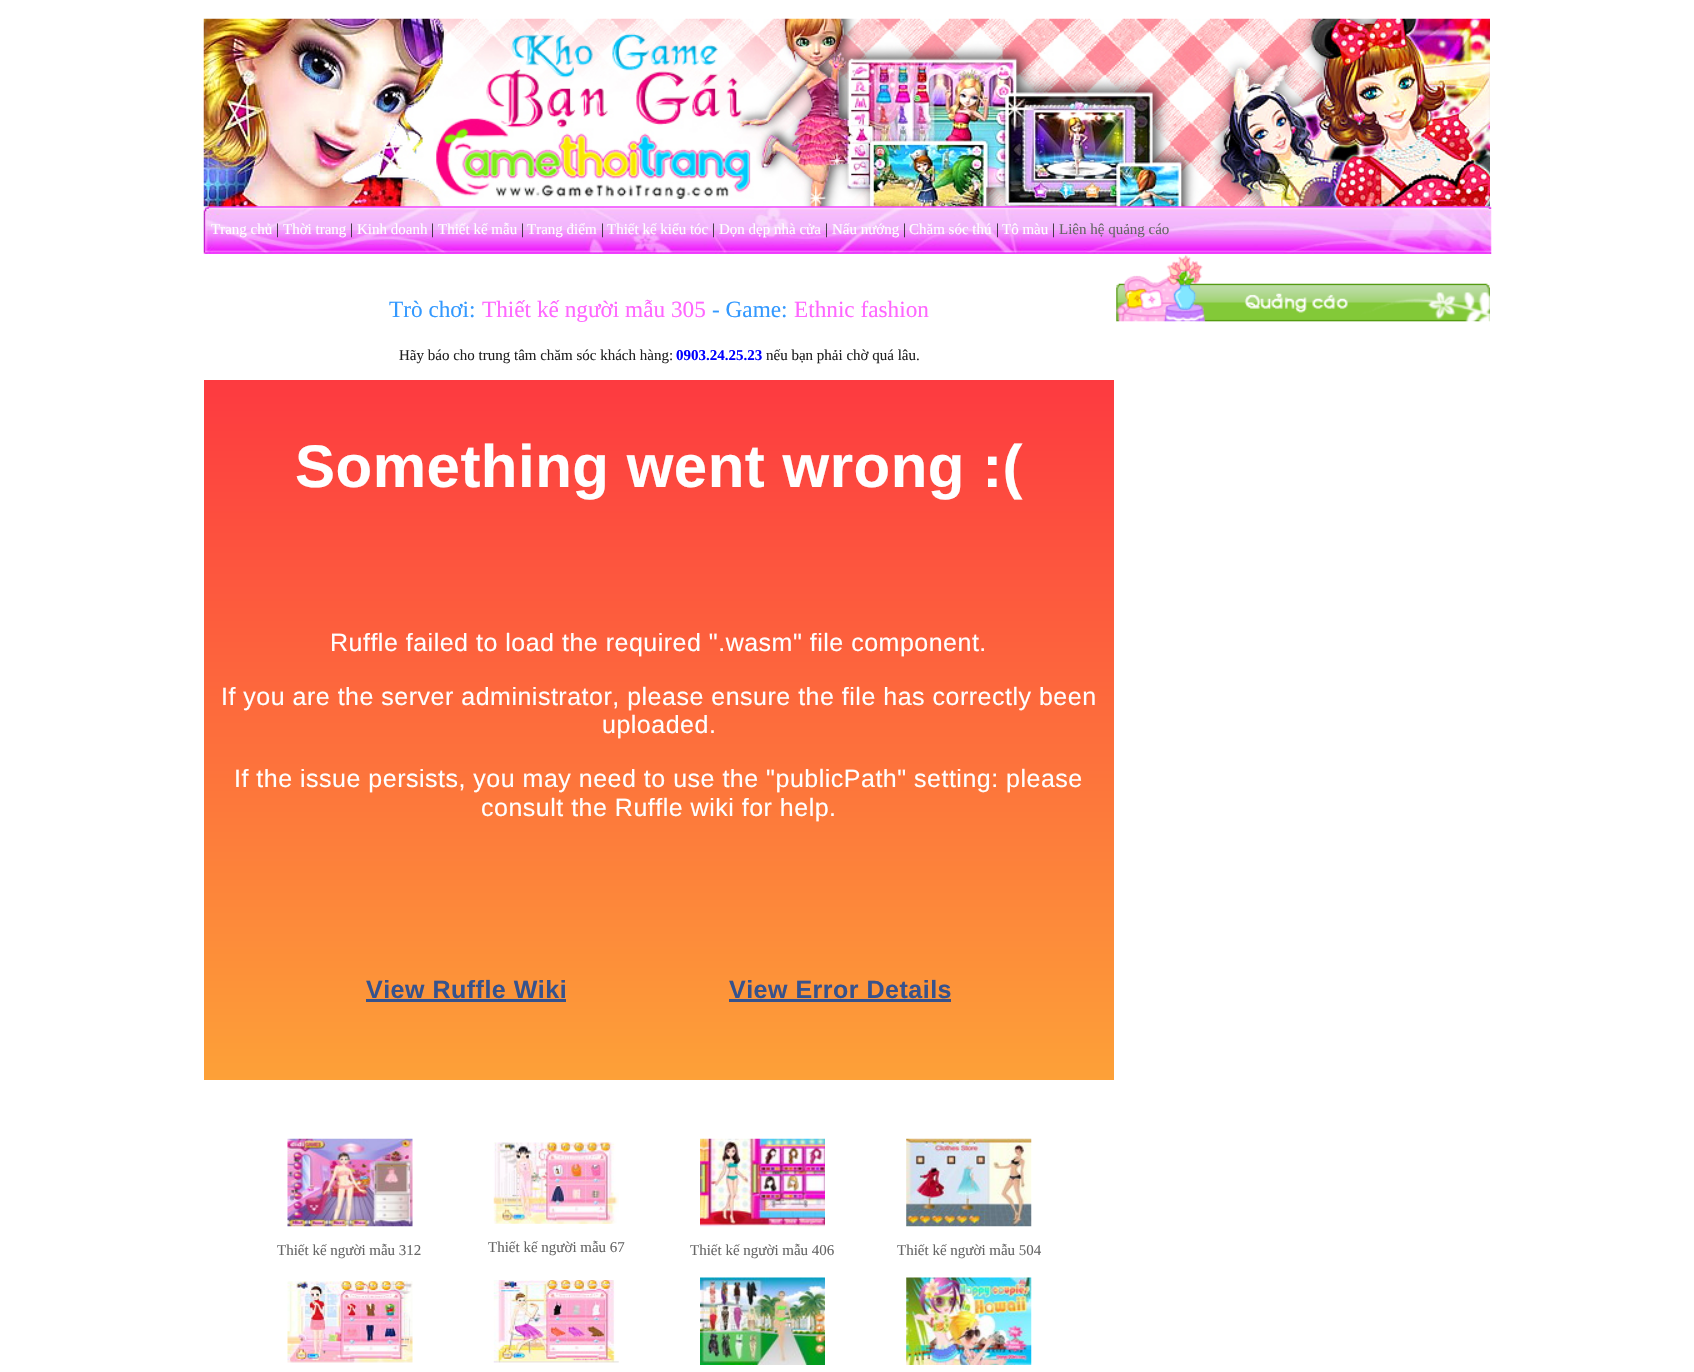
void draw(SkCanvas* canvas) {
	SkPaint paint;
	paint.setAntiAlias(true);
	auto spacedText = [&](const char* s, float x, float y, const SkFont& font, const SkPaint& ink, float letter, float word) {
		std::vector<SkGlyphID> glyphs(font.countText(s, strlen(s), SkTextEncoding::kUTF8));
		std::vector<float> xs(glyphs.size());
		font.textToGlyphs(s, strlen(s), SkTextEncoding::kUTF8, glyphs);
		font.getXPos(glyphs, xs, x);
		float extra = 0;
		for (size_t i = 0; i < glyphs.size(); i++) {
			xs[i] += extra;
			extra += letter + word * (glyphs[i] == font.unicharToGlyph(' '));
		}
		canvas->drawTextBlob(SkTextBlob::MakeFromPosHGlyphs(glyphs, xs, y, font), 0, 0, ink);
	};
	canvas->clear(0xffffffff);
	canvas->drawImageRect(SkImages::DeferredFromEncodedData(SkData::MakeFromFileName("img2.png")), SkRect::MakeXYWH(203, 206, 1289, 48), SkSamplingOptions());
	canvas->drawImageRect(SkImages::DeferredFromEncodedData(SkData::MakeFromFileName("img1.png")), SkRect::MakeXYWH(203, 18, 1287, 189), SkSamplingOptions());
	SkFont f1(fontMgr->matchFamilyStyle("Liberation Serif", SkFontStyle::Normal()), 15);
	f1.setSubpixel(true);
	paint.setColor(0xffffffff);
	canvas->drawString("Trang chủ", 211, 234, f1, paint);
	paint.setColor(0xff222222);
	canvas->drawString("|", 276, 234, f1, paint);
	paint.setColor(0xffffffff);
	canvas->drawString("Thời trang", 283, 234, f1, paint);
	paint.setColor(0xff222222);
	canvas->drawString("|", 350, 234, f1, paint);
	paint.setColor(0xffffffff);
	canvas->drawString("Kinh doanh", 357, 234, f1, paint);
	paint.setColor(0xff222222);
	canvas->drawString("|", 431, 234, f1, paint);
	paint.setColor(0xffffffff);
	canvas->drawString("Thiết kế mẫu", 438, 234, f1, paint);
	paint.setColor(0xff222222);
	canvas->drawString("|", 521, 234, f1, paint);
	paint.setColor(0xffffffff);
	canvas->drawString("Trang điểm", 527, 234, f1, paint);
	paint.setColor(0xff222222);
	canvas->drawString("|", 601, 234, f1, paint);
	paint.setColor(0xffffffff);
	canvas->drawString("Thiết kế kiểu tóc", 607, 234, f1, paint);
	paint.setColor(0xff222222);
	canvas->drawString("|", 712, 234, f1, paint);
	paint.setColor(0xffffffff);
	canvas->drawString("Dọn dẹp nhà cửa", 719, 234, f1, paint);
	paint.setColor(0xff222222);
	canvas->drawString("|", 825, 234, f1, paint);
	paint.setColor(0xffffffff);
	canvas->drawString("Nấu nướng", 832, 234, f1, paint);
	paint.setColor(0xff222222);
	canvas->drawString("|", 903, 234, f1, paint);
	paint.setColor(0xffffffff);
	canvas->drawString("Chăm sóc thú", 909, 234, f1, paint);
	paint.setColor(0xff222222);
	canvas->drawString("|", 996, 234, f1, paint);
	paint.setColor(0xffffffff);
	canvas->drawString("Tô màu", 1002, 234, f1, paint);
	paint.setColor(0xff222222);
	canvas->drawString("|", 1052, 234, f1, paint);
	paint.setColor(0xff666666);
	canvas->drawString("Liên hệ quảng cáo", 1059, 234, f1, paint);
	canvas->drawImageRect(SkImages::DeferredFromEncodedData(SkData::MakeFromFileName("img3.png")), SkRect::MakeXYWH(1116, 255, 374, 67), SkSamplingOptions());
	SkFont f2(fontMgr->matchFamilyStyle("Liberation Serif", SkFontStyle::Normal()), 23.25);
	f2.setSubpixel(true);
	paint.setColor(0xff3399ff);
	canvas->drawString("Trò chơi:", 389, 317, f2, paint);
	paint.setColor(0xffff66ff);
	canvas->drawString("Thiết kế người mẫu 305", 482, 317, f2, paint);
	paint.setColor(0xff3399ff);
	canvas->drawString("- Game:", 712, 317, f2, paint);
	paint.setColor(0xffff66ff);
	canvas->drawString("Ethnic fashion", 794, 317, f2, paint);
	paint.setColor(0xff222222);
	canvas->drawString("Hãy báo cho trung tâm chăm sóc khách hàng:", 399, 360, f1, paint);
	SkFont f3(fontMgr->matchFamilyStyle("Liberation Serif", SkFontStyle::Bold()), 15);
	f3.setSubpixel(true);
	paint.setColor(0xff0000ff);
	canvas->drawString("0903.24.25.23", 676, 360, f3, paint);
	paint.setColor(0xff222222);
	canvas->drawString("nếu bạn phải chờ quá lâu.", 766, 360, f1, paint);
	{
		const SkColor colors[] = {0xfffd3a40, 0xfffda138};
		const float stops[] = {0, 1};
		const SkPoint ends[] = {{659, 380}, {659, 1080}};
		paint.setShader(SkGradientShader::MakeLinear(ends, colors, stops, 2, SkTileMode::kClamp));
		paint.setAlpha(255);
	}
	canvas->drawRect(SkRect::MakeXYWH(204, 380, 910, 700), paint);
	SkFont f4(fontMgr->matchFamilyStyle("Liberation Sans", SkFontStyle::Bold()), 60);
	f4.setSubpixel(true);
	paint.setShader(nullptr);
	paint.setColor(0xffffffff);
	spacedText("Something went wrong :(", 295, 487, f4, paint, 0.5, 0);
	SkFont f5(fontMgr->matchFamilyStyle("Liberation Sans", SkFontStyle::Normal()), 25);
	f5.setSubpixel(true);
	spacedText("Ruffle failed to load the required \".wasm\" file component.", 330, 651, f5, paint, 0.5, 0);
	spacedText("If you are the server administrator, please ensure the file has correctly been", 221, 705, f5, paint, 0.5, 0);
	spacedText("uploaded.", 602, 733, f5, paint, 0.5, 0);
	spacedText("If the issue persists, you may need to use the \"publicPath\" setting: please", 234, 787, f5, paint, 0.5, 0);
	spacedText("consult the Ruffle wiki for help.", 481, 816, f5, paint, 0.5, 0);
	SkFont f6(fontMgr->matchFamilyStyle("Liberation Sans", SkFontStyle::Bold()), 25);
	f6.setSubpixel(true);
	paint.setColor(0xff37528c);
	spacedText("View Ruffle Wiki", 366, 998, f6, paint, 0.5, 0);
	canvas->drawRect(SkRect::MakeXYWH(366, 999, 200, 3), paint);
	spacedText("View Error Details", 729, 998, f6, paint, 0.5, 0);
	canvas->drawRect(SkRect::MakeXYWH(729, 999, 222, 3), paint);
	canvas->drawImageRect(SkImages::DeferredFromEncodedData(SkData::MakeFromFileName("img4.png")), SkRect::MakeXYWH(287, 1138, 126, 89), SkSamplingOptions());
	paint.setColor(0xff666666);
	canvas->drawString("Thiết kế người mẫu 312", 277, 1255, f1, paint);
	canvas->drawImageRect(SkImages::DeferredFromEncodedData(SkData::MakeFromFileName("img5.png")), SkRect::MakeXYWH(493, 1142, 126, 82), SkSamplingOptions());
	canvas->drawString("Thiết kế người mẫu 67", 488, 1252, f1, paint);
	canvas->drawImageRect(SkImages::DeferredFromEncodedData(SkData::MakeFromFileName("img6.png")), SkRect::MakeXYWH(700, 1138, 125, 89), SkSamplingOptions());
	canvas->drawString("Thiết kế người mẫu 406", 690, 1255, f1, paint);
	canvas->drawImageRect(SkImages::DeferredFromEncodedData(SkData::MakeFromFileName("img7.png")), SkRect::MakeXYWH(906, 1138, 126, 89), SkSamplingOptions());
	canvas->drawString("Thiết kế người mẫu 504", 897, 1255, f1, paint);
	canvas->drawImageRect(SkImages::DeferredFromEncodedData(SkData::MakeFromFileName("img8.png")), SkRect::MakeXYWH(287, 1281, 126, 82), SkSamplingOptions());
	canvas->drawImageRect(SkImages::DeferredFromEncodedData(SkData::MakeFromFileName("img9.png")), SkRect::MakeXYWH(493, 1280, 126, 83), SkSamplingOptions());
	canvas->drawImageRect(SkImages::DeferredFromEncodedData(SkData::MakeFromFileName("img10.png")), SkRect::MakeXYWH(700, 1277, 125, 88), SkSamplingOptions());
	canvas->drawImageRect(SkImages::DeferredFromEncodedData(SkData::MakeFromFileName("img11.png")), SkRect::MakeXYWH(906, 1277, 126, 88), SkSamplingOptions());
}
